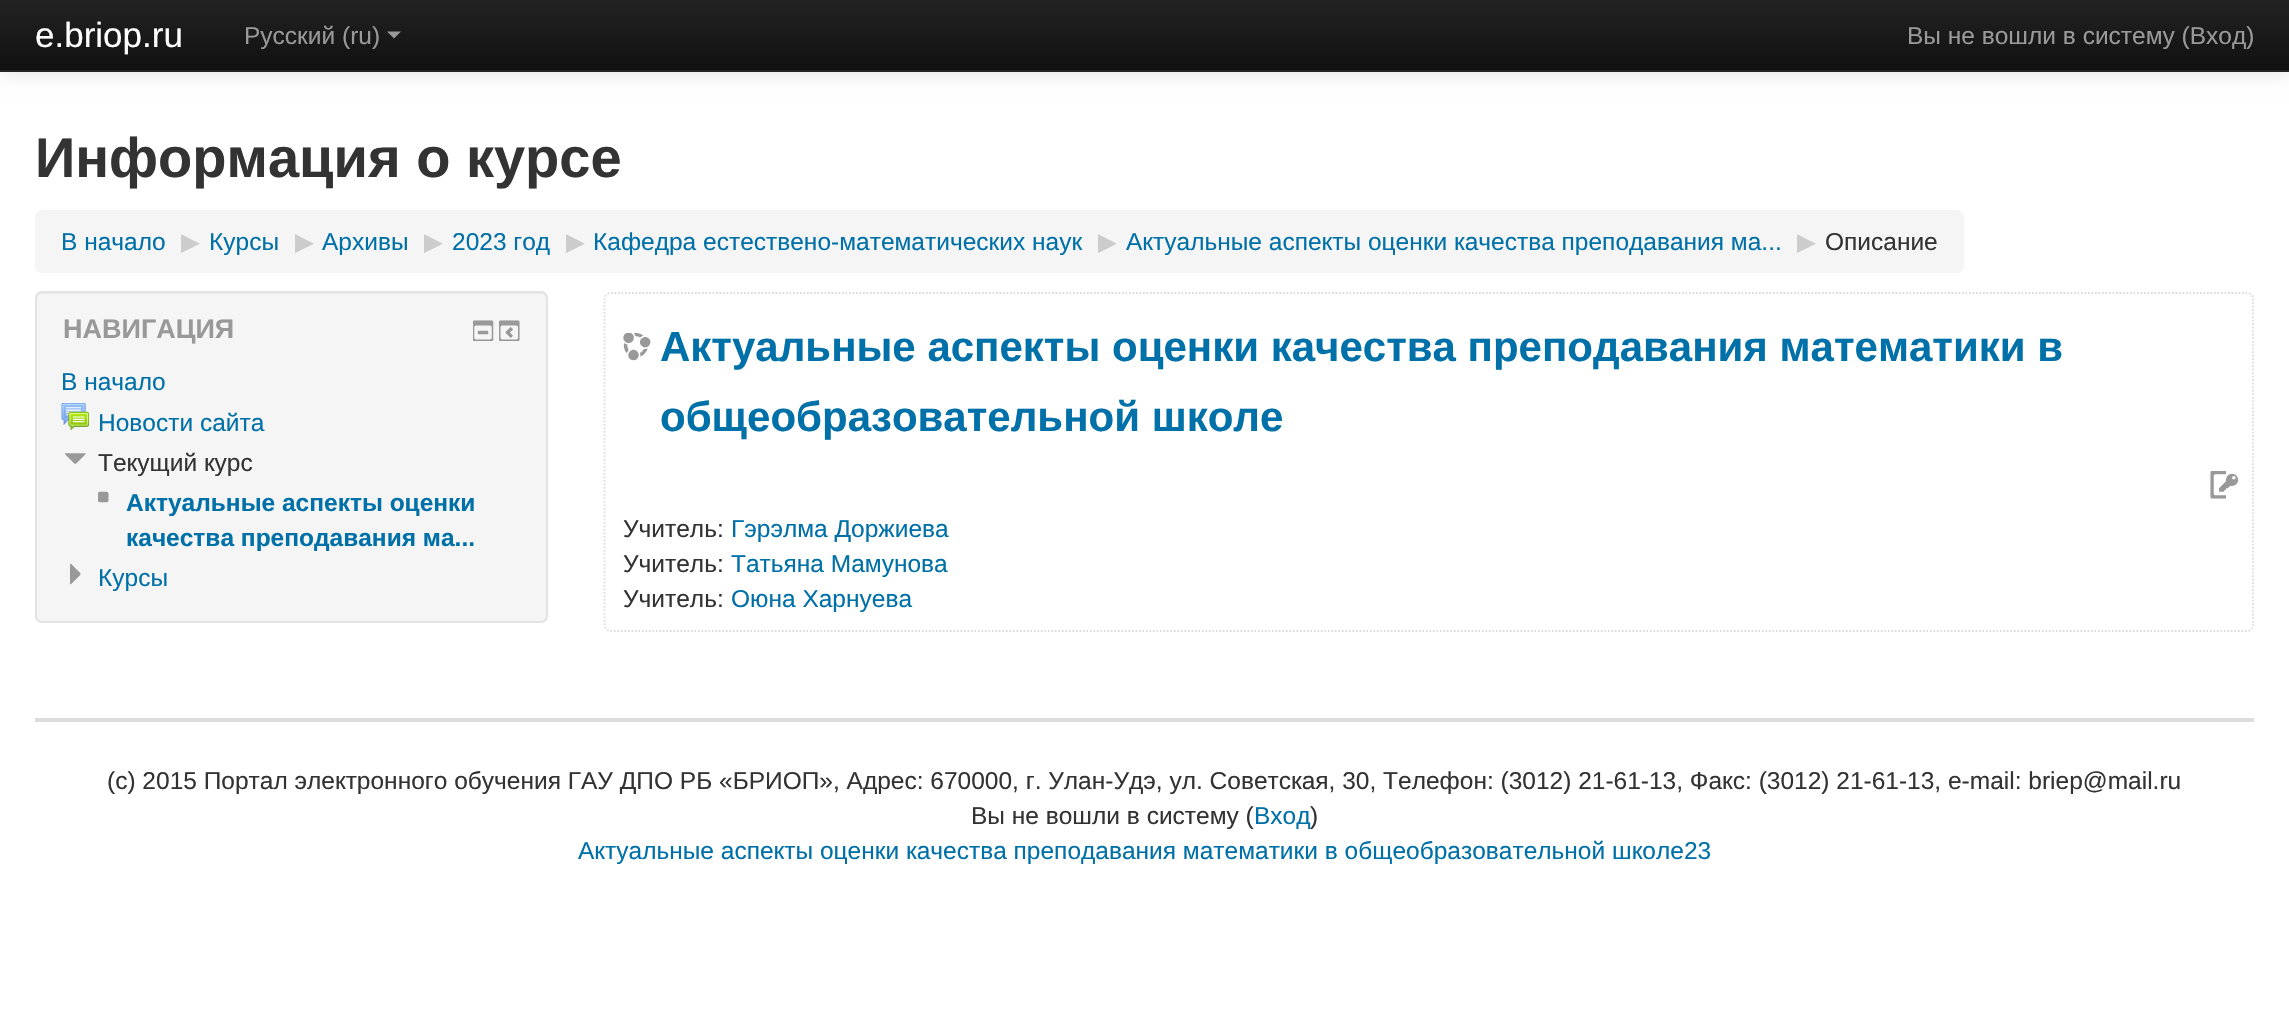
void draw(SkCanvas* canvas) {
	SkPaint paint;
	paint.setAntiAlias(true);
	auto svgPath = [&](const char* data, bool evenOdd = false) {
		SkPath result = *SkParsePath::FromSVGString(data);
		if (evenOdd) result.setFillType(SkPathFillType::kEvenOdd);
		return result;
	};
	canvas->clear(0xffffffff);
	paint.setColor(0x1a000000);
	paint.setMaskFilter(SkMaskFilter::MakeBlur(kNormal_SkBlurStyle, 9));
	canvas->drawRect(SkRect::MakeXYWH(0, 2, 2289, 72), paint);
	paint.setMaskFilter(nullptr);
	{
		const SkColor colors[] = {0xff222222, 0xff111111};
		const float stops[] = {0, 1};
		const SkPoint ends[] = {{1145, 0}, {1145, 70}};
		paint.setShader(SkGradientShader::MakeLinear(ends, colors, stops, 2, SkTileMode::kClamp));
		paint.setAlpha(255);
	}
	canvas->drawRect(SkRect::MakeXYWH(0, 0, 2289, 70), paint);
	paint.setShader(nullptr);
	paint.setColor(0xff252525);
	canvas->drawRect(SkRect::MakeXYWH(0, 70, 2289, 2), paint);
	SkFont f1(fontMgr->matchFamilyStyle("Liberation Sans", SkFontStyle::Normal()), 35);
	f1.setSubpixel(true);
	paint.setColor(0xffffffff);
	canvas->drawString("e.briop.ru", 35, 47, f1, paint);
	SkFont f2(fontMgr->matchFamilyStyle("Liberation Sans", SkFontStyle::Normal()), 24.5);
	f2.setSubpixel(true);
	paint.setColor(0xff999999);
	canvas->drawString("Русский (ru)", 244, 44, f2, paint);
	canvas->drawPath(svgPath("M387 31.5H401L394 38.5Z"), paint);
	canvas->drawString("Вы не вошли в систему (Вход)", 1907, 44, f2, paint);
	SkFont f3(fontMgr->matchFamilyStyle("Liberation Sans", SkFontStyle::Bold()), 56);
	f3.setSubpixel(true);
	paint.setColor(0xff333333);
	canvas->drawString("Информация о курсе", 35, 177, f3, paint);
	paint.setColor(0xfff5f5f5);
	canvas->drawRoundRect(SkRect::MakeXYWH(35, 210, 1929, 63), 7, 7, paint);
	paint.setColor(0xff0070a8);
	canvas->drawString("В начало", 61, 250, f2, paint);
	SkFont f4(fontMgr->matchFamilyStyle("DejaVu Sans", SkFontStyle::Normal()), 24.5);
	f4.setSubpixel(true);
	paint.setColor(0xffcccccc);
	canvas->drawString("▶", 181, 250, f4, paint);
	paint.setColor(0xff0070a8);
	canvas->drawString("Курсы", 209, 250, f2, paint);
	paint.setColor(0xffcccccc);
	canvas->drawString("▶", 295, 250, f4, paint);
	paint.setColor(0xff0070a8);
	canvas->drawString("Архивы", 322, 250, f2, paint);
	paint.setColor(0xffcccccc);
	canvas->drawString("▶", 424, 250, f4, paint);
	paint.setColor(0xff0070a8);
	canvas->drawString("2023 год", 452, 250, f2, paint);
	paint.setColor(0xffcccccc);
	canvas->drawString("▶", 566, 250, f4, paint);
	paint.setColor(0xff0070a8);
	canvas->drawString("Кафедра естествено-математических наук", 593, 250, f2, paint);
	paint.setColor(0xffcccccc);
	canvas->drawString("▶", 1098, 250, f4, paint);
	paint.setColor(0xff0070a8);
	canvas->drawString("Актуальные аспекты оценки качества преподавания ма...", 1126, 250, f2, paint);
	paint.setColor(0xffcccccc);
	canvas->drawString("▶", 1797, 250, f4, paint);
	paint.setColor(0xff333333);
	canvas->drawString("Описание", 1825, 250, f2, paint);
	paint.setColor(0xfff5f5f5);
	canvas->drawRoundRect(SkRect::MakeXYWH(35, 291, 513, 332), 7, 7, paint);
	paint.setColor(0xffe9e9e9);
	canvas->drawPath(svgPath("M42 294H541C544 294 546 296 546 299V297C546 294 544 292 541 292H42C39 292 37 294 37 297V299C37 296 39 294 42 294Z"), paint);
	paint.setStroke(true);
	paint.setStrokeWidth(2);
	paint.setColor(0xffe3e3e3);
	canvas->drawRoundRect(SkRect::MakeXYWH(36, 292, 511, 330), 6, 6, paint);
	SkFont f5(fontMgr->matchFamilyStyle("Liberation Sans", SkFontStyle::Bold()), 27);
	f5.setSubpixel(true);
	paint.setStroke(false);
	paint.setColor(0xff999999);
	canvas->drawString("НАВИГАЦИЯ", 63, 338, f5, paint);
	canvas->drawImageRect(SkImages::DeferredFromEncodedData(SkData::MakeFromFileName("img1.png")), SkRect::MakeXYWH(473, 320, 21, 21), SkSamplingOptions());
	canvas->drawImageRect(SkImages::DeferredFromEncodedData(SkData::MakeFromFileName("img2.png")), SkRect::MakeXYWH(499, 320, 21, 21), SkSamplingOptions());
	paint.setColor(0xff0070a8);
	canvas->drawString("В начало", 61, 390, f2, paint);
	canvas->drawImageRect(SkImages::DeferredFromEncodedData(SkData::MakeFromFileName("img3.png")), SkRect::MakeXYWH(61, 403, 28, 28), SkSamplingOptions());
	canvas->drawString("Новости сайта", 98, 431, f2, paint);
	canvas->drawImageRect(SkImages::DeferredFromEncodedData(SkData::MakeFromFileName("img4.png")), SkRect::MakeXYWH(65, 453, 21, 11), SkSamplingOptions());
	paint.setColor(0xff333333);
	canvas->drawString("Текущий курс", 98, 471, f2, paint);
	canvas->drawImageRect(SkImages::DeferredFromEncodedData(SkData::MakeFromFileName("img5.png")), SkRect::MakeXYWH(98, 491, 11, 12), SkSamplingOptions());
	SkFont f6(fontMgr->matchFamilyStyle("Liberation Sans", SkFontStyle::Bold()), 24.5);
	f6.setSubpixel(true);
	paint.setColor(0xff0070a8);
	canvas->drawString("Актуальные аспекты оценки", 126, 511, f6, paint);
	canvas->drawString("качества преподавания ма...", 126, 546, f6, paint);
	canvas->drawImageRect(SkImages::DeferredFromEncodedData(SkData::MakeFromFileName("img6.png")), SkRect::MakeXYWH(70, 563, 11, 22), SkSamplingOptions());
	canvas->drawString("Курсы", 98, 586, f2, paint);
	paint.setStroke(true);
	paint.setStrokeWidth(1.8);
	paint.setColor(0xffdddddd);
	paint.setPathEffect(SkDashPathEffect::Make({{1.75f, 1.75f}}, 0));
	canvas->drawPath(svgPath("M611 293H2247C2250.5 293 2253 296 2253 299V625C2253 628 2250.5 631 2247 631H611C607.5 631 604.5 628 604.5 625V299C604.5 296 607.5 293 611 293Z"), paint);
	paint.setPathEffect(nullptr);
	canvas->drawImageRect(SkImages::DeferredFromEncodedData(SkData::MakeFromFileName("img7.png")), SkRect::MakeXYWH(623, 333, 28, 28), SkSamplingOptions());
	SkFont f7(fontMgr->matchFamilyStyle("Liberation Sans", SkFontStyle::Bold()), 42);
	f7.setSubpixel(true);
	paint.setStroke(false);
	paint.setColor(0xff0070a8);
	canvas->drawString("Актуальные аспекты оценки качества преподавания математики в", 660, 361, f7, paint);
	canvas->drawString("общеобразовательной школе", 660, 431, f7, paint);
	canvas->drawImageRect(SkImages::DeferredFromEncodedData(SkData::MakeFromFileName("img8.png")), SkRect::MakeXYWH(2210, 471, 28, 28), SkSamplingOptions());
	paint.setColor(0xff333333);
	canvas->drawString("Учитель:", 623, 537, f2, paint);
	paint.setColor(0xff0070a8);
	canvas->drawString("Гэрэлма Доржиева", 731, 537, f2, paint);
	paint.setColor(0xff333333);
	canvas->drawString("Учитель:", 623, 572, f2, paint);
	paint.setColor(0xff0070a8);
	canvas->drawString("Татьяна Мамунова", 731, 572, f2, paint);
	paint.setColor(0xff333333);
	canvas->drawString("Учитель:", 623, 607, f2, paint);
	paint.setColor(0xff0070a8);
	canvas->drawString("Оюна Харнуева", 731, 607, f2, paint);
	paint.setColor(0xffdddddd);
	canvas->drawRect(SkRect::MakeXYWH(35, 718, 2219, 4), paint);
	paint.setColor(0xff333333);
	canvas->drawString("(c) 2015 Портал электронного обучения ГАУ ДПО РБ «БРИОП», Адрес: 670000, г. Улан-Удэ, ул. Советская, 30, Телефон: (3012) 21-61-13, Факс: (3012) 21-61-13, e-mail: briep@mail.ru", 107, 789, f2, paint);
	canvas->drawString("Вы не вошли в систему (", 971, 824, f2, paint);
	paint.setColor(0xff0070a8);
	canvas->drawString("Вход", 1254, 824, f2, paint);
	paint.setColor(0xff333333);
	canvas->drawString(")", 1310, 824, f2, paint);
	paint.setColor(0xff0070a8);
	canvas->drawString("Актуальные аспекты оценки качества преподавания математики в общеобразовательной школе23", 578, 859, f2, paint);
}
